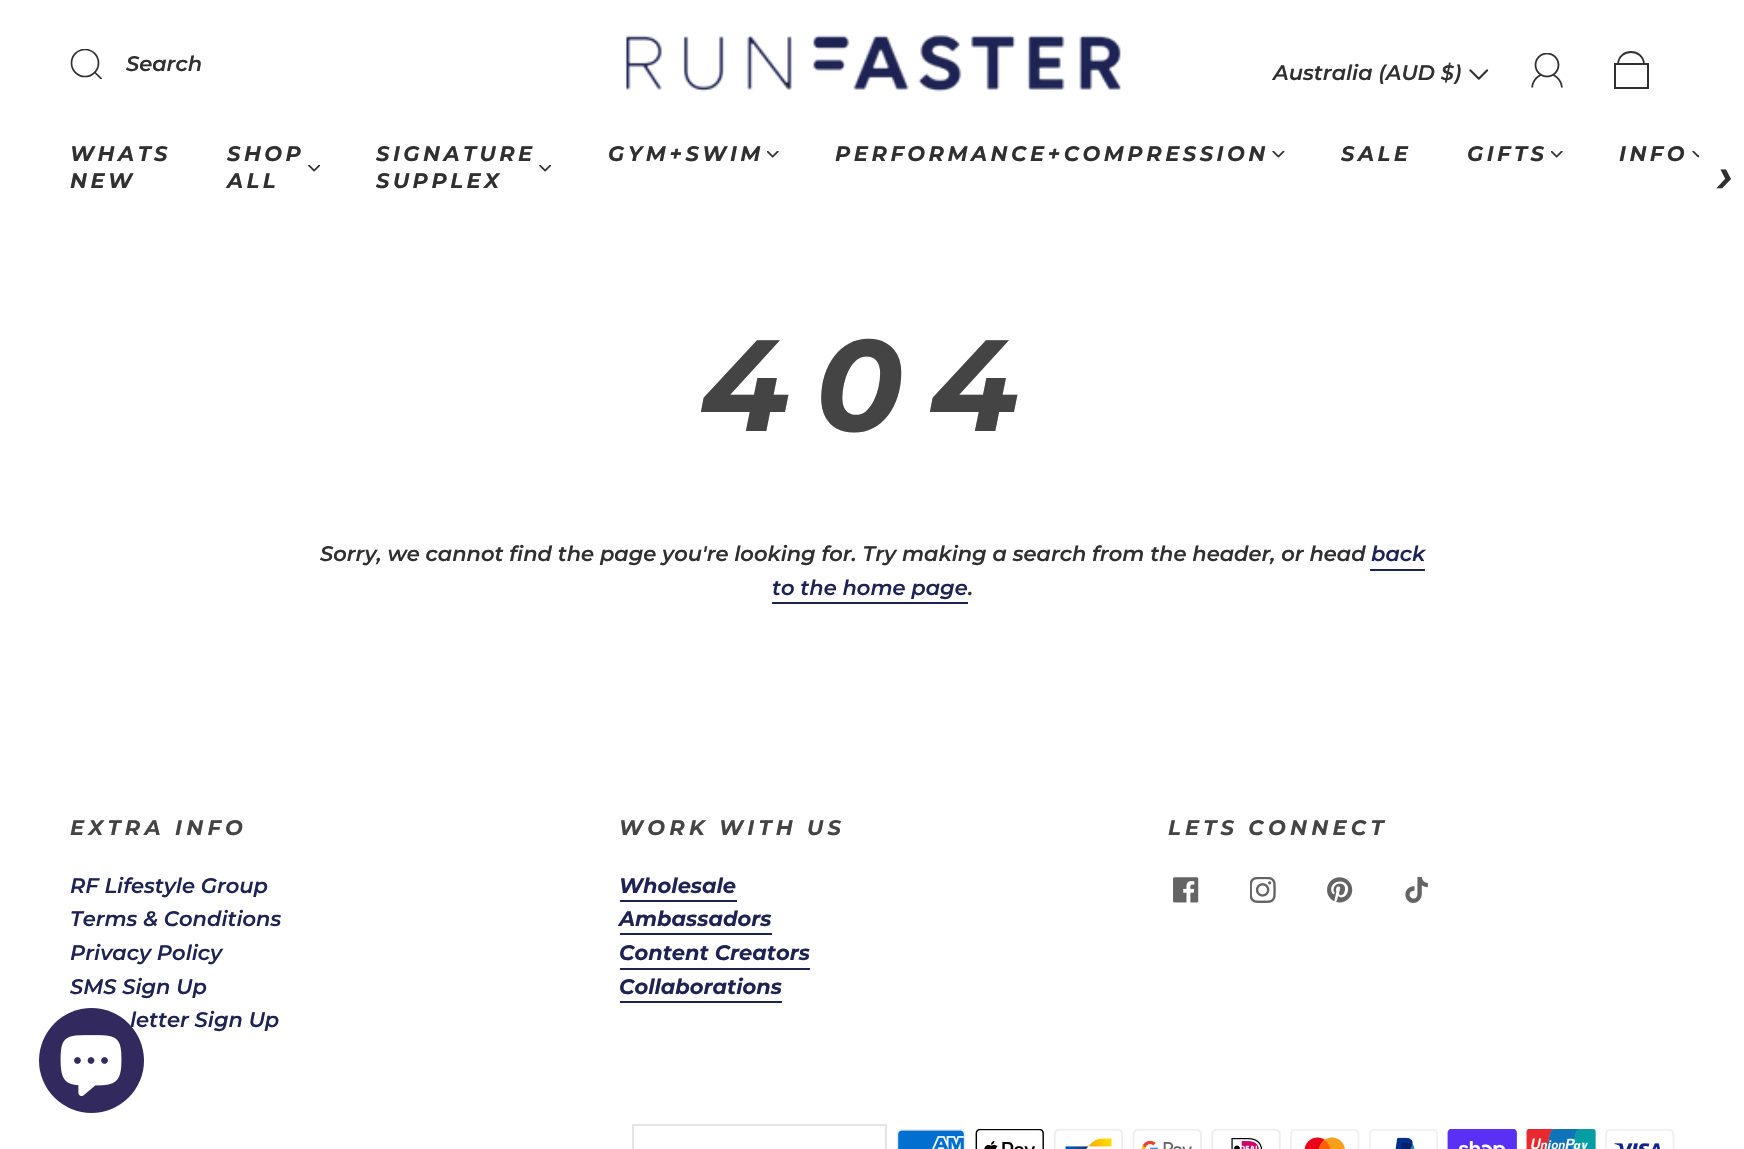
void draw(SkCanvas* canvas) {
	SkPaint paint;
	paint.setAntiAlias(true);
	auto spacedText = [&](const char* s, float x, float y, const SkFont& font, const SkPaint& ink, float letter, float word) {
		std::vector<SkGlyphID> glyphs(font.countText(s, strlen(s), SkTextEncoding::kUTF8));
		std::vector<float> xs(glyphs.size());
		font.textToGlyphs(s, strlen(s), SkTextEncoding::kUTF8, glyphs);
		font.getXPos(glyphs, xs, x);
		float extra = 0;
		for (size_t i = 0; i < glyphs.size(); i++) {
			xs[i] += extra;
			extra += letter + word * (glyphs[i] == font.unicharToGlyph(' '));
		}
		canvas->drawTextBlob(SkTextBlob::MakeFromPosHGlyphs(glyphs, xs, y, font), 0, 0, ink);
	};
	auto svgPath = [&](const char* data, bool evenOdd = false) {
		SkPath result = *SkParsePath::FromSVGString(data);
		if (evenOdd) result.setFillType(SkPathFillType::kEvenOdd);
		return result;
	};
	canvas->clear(0xffffffff);
	canvas->save();
	canvas->clipRect(SkRect::MakeXYWH(70, 49, 32, 30));
	paint.setStroke(true);
	paint.setStrokeWidth(1.7);
	paint.setColor(0xff303030);
	canvas->drawCircle(85, 63, 13.5, paint);
	canvas->drawPath(svgPath("M94.5 72L104 81.5"), paint);
	canvas->restore();
	SkFont f1(fontMgr->matchFamilyStyle("Montserrat", SkFontStyle(600, SkFontStyle::kNormal_Width, SkFontStyle::kItalic_Slant)), 21);
	f1.setSubpixel(true);
	paint.setStroke(false);
	canvas->drawString("Search", 126, 71, f1, paint);
	canvas->drawImageRect(SkImages::DeferredFromEncodedData(SkData::MakeFromFileName("img1.png")), SkRect::MakeXYWH(625, 34, 496, 58), SkSamplingOptions());
	canvas->drawString("Australia (AUD $)", 1273, 80, f1, paint);
	canvas->drawImageRect(SkImages::DeferredFromEncodedData(SkData::MakeFromFileName("img2.png")), SkRect::MakeXYWH(1469, 69, 20, 11), SkSamplingOptions());
	canvas->drawImageRect(SkImages::DeferredFromEncodedData(SkData::MakeFromFileName("img3.png")), SkRect::MakeXYWH(1531, 53, 32, 35), SkSamplingOptions());
	paint.setStroke(true);
	paint.setStrokeWidth(1.8);
	canvas->drawPath(svgPath("M1618 64C1619 48 1643 48 1644 64Z"), paint);
	paint.setStrokeWidth(2);
	canvas->drawRect(SkRect::MakeXYWH(1615, 64, 33, 24), paint);
	SkFont f2(fontMgr->matchFamilyStyle("Montserrat", SkFontStyle::BoldItalic()), 21);
	f2.setSubpixel(true);
	paint.setStroke(false);
	spacedText("WHATS", 70, 161, f2, paint, 3.5, 0);
	spacedText("NEW", 70, 188, f2, paint, 3.5, 0);
	spacedText("SHOP", 227, 161, f2, paint, 3.5, 0);
	canvas->drawImageRect(SkImages::DeferredFromEncodedData(SkData::MakeFromFileName("img4.png")), SkRect::MakeXYWH(308, 165, 12, 7), SkSamplingOptions());
	spacedText("ALL", 227, 188, f2, paint, 3.5, 0);
	spacedText("SIGNATURE", 376, 161, f2, paint, 3.5, 0);
	canvas->drawImageRect(SkImages::DeferredFromEncodedData(SkData::MakeFromFileName("img4.png")), SkRect::MakeXYWH(539, 165, 12, 7), SkSamplingOptions());
	spacedText("SUPPLEX", 376, 188, f2, paint, 3.5, 0);
	spacedText("GYM+SWIM", 608, 161, f2, paint, 3.5, 0);
	canvas->drawImageRect(SkImages::DeferredFromEncodedData(SkData::MakeFromFileName("img5.png")), SkRect::MakeXYWH(767, 151, 12, 7), SkSamplingOptions());
	spacedText("PERFORMANCE+COMPRESSION", 835, 161, f2, paint, 3.5, 0);
	canvas->drawImageRect(SkImages::DeferredFromEncodedData(SkData::MakeFromFileName("img6.png")), SkRect::MakeXYWH(1272, 151, 13, 7), SkSamplingOptions());
	spacedText("SALE", 1341, 161, f2, paint, 3.5, 0);
	spacedText("GIFTS", 1467, 161, f2, paint, 3.5, 0);
	canvas->drawImageRect(SkImages::DeferredFromEncodedData(SkData::MakeFromFileName("img5.png")), SkRect::MakeXYWH(1551, 151, 12, 7), SkSamplingOptions());
	spacedText("INFO", 1619, 161, f2, paint, 3.5, 0);
	canvas->drawImageRect(SkImages::DeferredFromEncodedData(SkData::MakeFromFileName("img7.png")), SkRect::MakeXYWH(1692, 151, 7, 7), SkSamplingOptions());
	SkFont f3(fontMgr->matchFamilyStyle("Montserrat", SkFontStyle(600, SkFontStyle::kNormal_Width, SkFontStyle::kItalic_Slant)), 49);
	f3.setSubpixel(true);
	canvas->drawString("›", 1717, 192, f3, paint);
	SkFont f4(fontMgr->matchFamilyStyle("Montserrat", SkFontStyle::BoldItalic()), 129.5);
	f4.setSubpixel(true);
	paint.setColor(0xff454444);
	spacedText("404", 700, 431, f4, paint, 26, 0);
	paint.setColor(0xff303030);
	canvas->drawString("Sorry, we cannot find the page you're looking for. Try making a search from the header, or head", 320, 561, f1, paint);
	paint.setColor(0xff1f2353);
	canvas->drawString("back", 1371, 561, f1, paint);
	canvas->drawRect(SkRect::MakeXYWH(1370, 569, 55, 2), paint);
	canvas->drawString("to the home page", 772, 595, f1, paint);
	canvas->drawRect(SkRect::MakeXYWH(772, 602, 196, 2), paint);
	paint.setColor(0xff303030);
	canvas->drawString(".", 968, 595, f1, paint);
	paint.setColor(0xff454444);
	spacedText("EXTRA INFO", 70, 835, f2, paint, 4.25, 0);
	paint.setColor(0xff1f2353);
	canvas->drawString("RF Lifestyle Group", 70, 893, f1, paint);
	canvas->drawString("Terms & Conditions", 70, 926, f1, paint);
	canvas->drawString("Privacy Policy", 70, 960, f1, paint);
	canvas->drawString("SMS Sign Up", 70, 994, f1, paint);
	canvas->drawString("letter Sign Up", 130, 1027, f1, paint);
	paint.setColor(0xff454444);
	spacedText("WORK WITH US", 619, 835, f2, paint, 4.25, 0);
	paint.setColor(0xff1f2353);
	canvas->drawString("Wholesale", 619, 893, f2, paint);
	canvas->drawRect(SkRect::MakeXYWH(620, 900, 117, 2), paint);
	canvas->drawString("Ambassadors", 619, 926, f2, paint);
	canvas->drawRect(SkRect::MakeXYWH(620, 933, 152, 2), paint);
	canvas->drawString("Content Creators", 619, 960, f2, paint);
	canvas->drawRect(SkRect::MakeXYWH(620, 968, 190, 2), paint);
	canvas->drawString("Collaborations", 619, 994, f2, paint);
	canvas->drawRect(SkRect::MakeXYWH(620, 1001, 162, 2), paint);
	paint.setColor(0xff454444);
	spacedText("LETS CONNECT", 1168, 835, f2, paint, 4.25, 0);
	canvas->drawImageRect(SkImages::DeferredFromEncodedData(SkData::MakeFromFileName("img8.png")), SkRect::MakeXYWH(1173, 877, 26, 26), SkSamplingOptions());
	canvas->drawImageRect(SkImages::DeferredFromEncodedData(SkData::MakeFromFileName("img9.png")), SkRect::MakeXYWH(1250, 877, 26, 26), SkSamplingOptions());
	canvas->drawImageRect(SkImages::DeferredFromEncodedData(SkData::MakeFromFileName("img10.png")), SkRect::MakeXYWH(1327, 877, 26, 26), SkSamplingOptions());
	canvas->drawImageRect(SkImages::DeferredFromEncodedData(SkData::MakeFromFileName("img11.png")), SkRect::MakeXYWH(1405, 877, 23, 26), SkSamplingOptions());
	paint.setStroke(true);
	paint.setColor(0xffe4e4e4);
	canvas->drawRect(SkRect::MakeXYWH(633, 1125, 253, 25), paint);
	canvas->drawImageRect(SkImages::DeferredFromEncodedData(SkData::MakeFromFileName("img12.png")), SkRect::MakeXYWH(896, 1129, 70, 20), SkSamplingOptions());
	canvas->drawImageRect(SkImages::DeferredFromEncodedData(SkData::MakeFromFileName("img13.png")), SkRect::MakeXYWH(975, 1129, 69, 20), SkSamplingOptions());
	canvas->drawImageRect(SkImages::DeferredFromEncodedData(SkData::MakeFromFileName("img14.png")), SkRect::MakeXYWH(1054, 1129, 69, 20), SkSamplingOptions());
	canvas->drawImageRect(SkImages::DeferredFromEncodedData(SkData::MakeFromFileName("img15.png")), SkRect::MakeXYWH(1132, 1129, 70, 20), SkSamplingOptions());
	canvas->drawImageRect(SkImages::DeferredFromEncodedData(SkData::MakeFromFileName("img16.png")), SkRect::MakeXYWH(1211, 1129, 70, 20), SkSamplingOptions());
	canvas->drawImageRect(SkImages::DeferredFromEncodedData(SkData::MakeFromFileName("img17.png")), SkRect::MakeXYWH(1290, 1129, 70, 20), SkSamplingOptions());
	canvas->drawImageRect(SkImages::DeferredFromEncodedData(SkData::MakeFromFileName("img18.png")), SkRect::MakeXYWH(1369, 1129, 69, 20), SkSamplingOptions());
	canvas->drawImageRect(SkImages::DeferredFromEncodedData(SkData::MakeFromFileName("img19.png")), SkRect::MakeXYWH(1447, 1129, 70, 20), SkSamplingOptions());
	canvas->drawImageRect(SkImages::DeferredFromEncodedData(SkData::MakeFromFileName("img20.png")), SkRect::MakeXYWH(1526, 1129, 70, 20), SkSamplingOptions());
	canvas->drawImageRect(SkImages::DeferredFromEncodedData(SkData::MakeFromFileName("img21.png")), SkRect::MakeXYWH(1605, 1129, 70, 20), SkSamplingOptions());
	paint.setStroke(false);
	paint.setColor(0xff322a5f);
	canvas->drawCircle(91.5, 1060.5, 52.5, paint);
	canvas->drawImageRect(SkImages::DeferredFromEncodedData(SkData::MakeFromFileName("img22.png")), SkRect::MakeXYWH(60, 1035, 62, 61), SkSamplingOptions());
}
